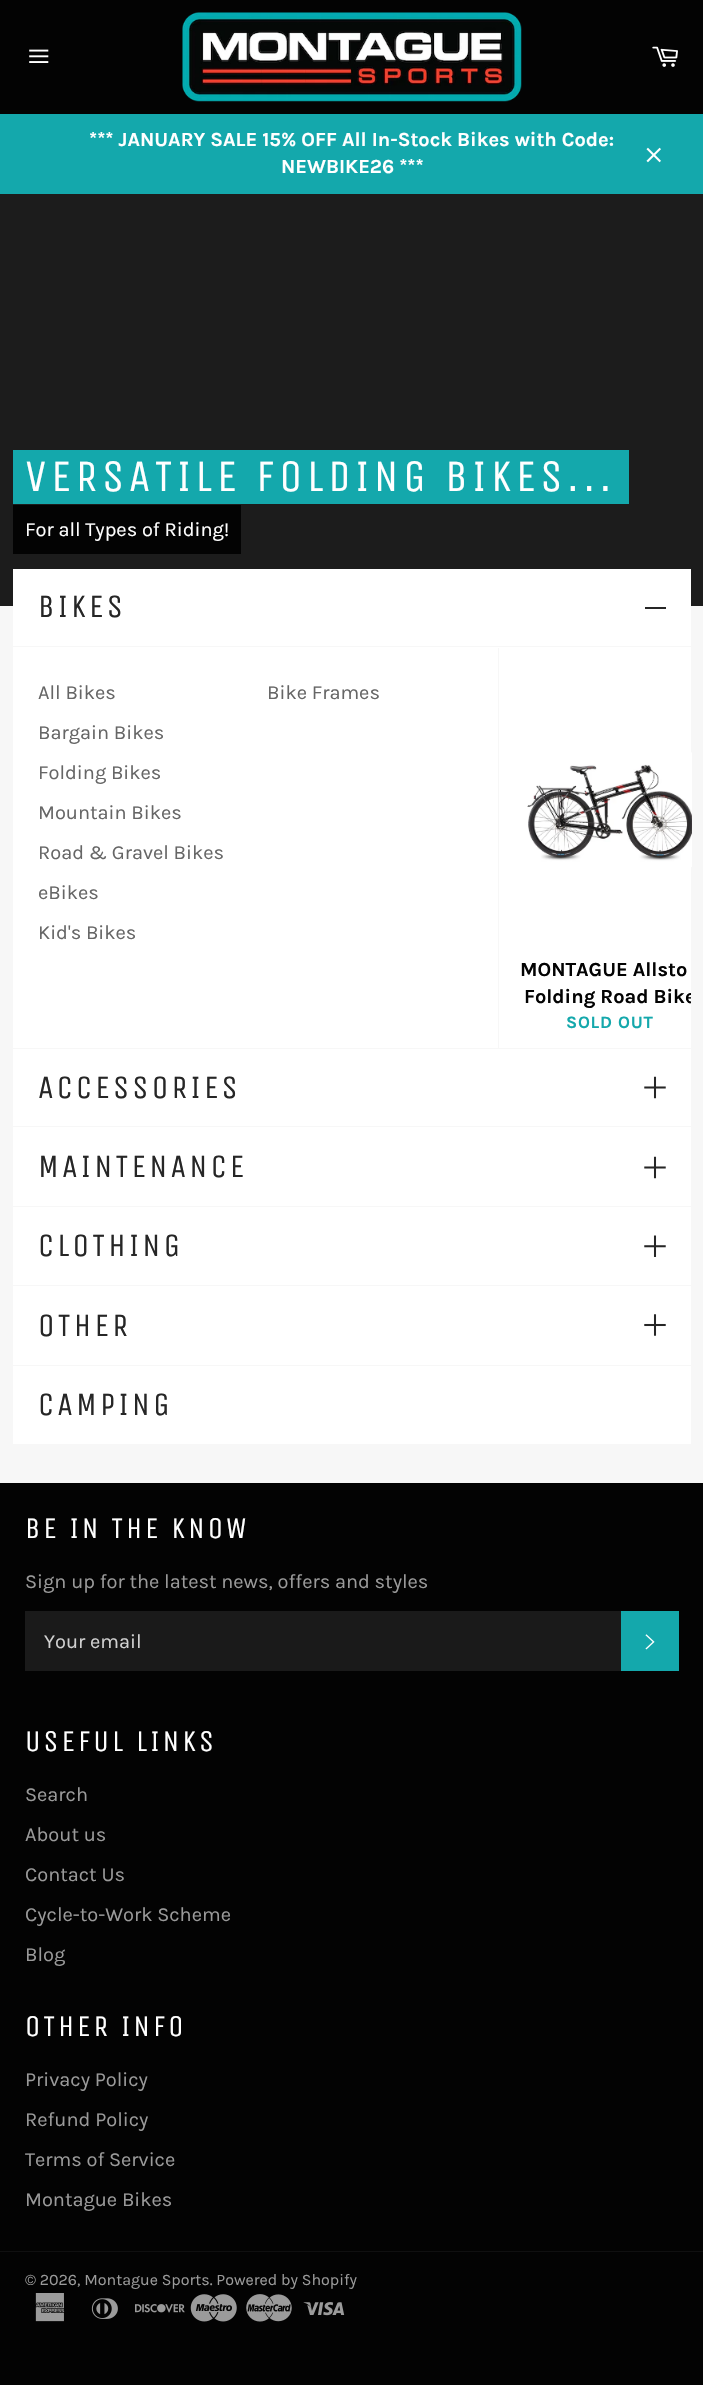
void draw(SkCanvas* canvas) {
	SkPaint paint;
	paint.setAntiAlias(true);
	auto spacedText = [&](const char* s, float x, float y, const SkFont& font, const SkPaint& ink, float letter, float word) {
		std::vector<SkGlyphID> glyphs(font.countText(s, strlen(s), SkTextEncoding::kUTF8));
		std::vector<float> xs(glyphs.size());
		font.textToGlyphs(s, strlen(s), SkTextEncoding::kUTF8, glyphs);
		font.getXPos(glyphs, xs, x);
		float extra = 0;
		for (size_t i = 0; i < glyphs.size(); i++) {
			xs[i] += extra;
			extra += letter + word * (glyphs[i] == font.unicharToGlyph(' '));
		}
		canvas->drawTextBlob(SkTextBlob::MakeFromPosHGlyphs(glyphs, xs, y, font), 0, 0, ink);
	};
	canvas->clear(0xff030303);
	paint.setColor(0xfff7f7f7);
	canvas->drawRect(SkRect::MakeXYWH(0, 606, 703, 877), paint);
	canvas->drawImageRect(SkImages::DeferredFromEncodedData(SkData::MakeFromFileName("img1.png")), SkRect::MakeXYWH(29, 49, 20, 14), SkSamplingOptions());
	canvas->drawImageRect(SkImages::DeferredFromEncodedData(SkData::MakeFromFileName("img2.png")), SkRect::MakeXYWH(182, 12, 340, 90), SkSamplingOptions());
	canvas->drawImageRect(SkImages::DeferredFromEncodedData(SkData::MakeFromFileName("img3.png")), SkRect::MakeXYWH(652, 46, 26, 21), SkSamplingOptions());
	paint.setColor(0xff14a8ac);
	canvas->drawRect(SkRect::MakeXYWH(0, 114, 703, 80), paint);
	SkFont f1(fontMgr->matchFamilyStyle("Karla", SkFontStyle::Bold()), 20);
	f1.setSubpixel(true);
	paint.setColor(0xffffffff);
	canvas->drawString("*** JANUARY SALE 15% OFF All In-Stock Bikes with Code:", 89, 146, f1, paint);
	canvas->drawString("NEWBIKE26 ***", 281, 173, f1, paint);
	canvas->drawImageRect(SkImages::DeferredFromEncodedData(SkData::MakeFromFileName("img4.png")), SkRect::MakeXYWH(646, 147, 15, 16), SkSamplingOptions());
	paint.setColor(0xff1c1c1c);
	canvas->drawRect(SkRect::MakeXYWH(0, 194, 703, 412), paint);
	paint.setColor(0xff14a8ac);
	canvas->drawRect(SkRect::MakeXYWH(13, 450, 616, 54), paint);
	SkFont f2(fontMgr->matchFamilyStyle("Unica One", SkFontStyle::Normal()), 45);
	f2.setSubpixel(true);
	paint.setColor(0xffffffff);
	spacedText("VERSATILE FOLDING BIKES...", 25, 491, f2, paint, 4.5, 0);
	paint.setColor(0xff030303);
	canvas->drawRect(SkRect::MakeXYWH(13, 505, 228, 49), paint);
	SkFont f3(fontMgr->matchFamilyStyle("Karla", SkFontStyle::Normal()), 20);
	f3.setSubpixel(true);
	paint.setColor(0xffffffff);
	canvas->drawString("For all Types of Riding!", 25, 536, f3, paint);
	canvas->drawRect(SkRect::MakeXYWH(13, 569, 678, 875), paint);
	paint.setColor(0xfff7f7f7);
	canvas->drawRect(SkRect::MakeXYWH(13, 1048, 678, 1), paint);
	SkFont f4(fontMgr->matchFamilyStyle("Unica One", SkFontStyle::Normal()), 32.5);
	f4.setSubpixel(true);
	paint.setColor(0xff262626);
	spacedText("BIKES", 38, 617, f4, paint, 3.25, 0);
	canvas->drawRect(SkRect::MakeXYWH(645, 607, 21, 2), paint);
	paint.setColor(0xfff7f7f7);
	canvas->drawRect(SkRect::MakeXYWH(13, 646, 678, 1), paint);
	paint.setColor(0xff666666);
	canvas->drawString("All Bikes", 38, 699, f3, paint);
	canvas->drawString("Bargain Bikes", 38, 739, f3, paint);
	canvas->drawString("Folding Bikes", 38, 779, f3, paint);
	canvas->drawString("Mountain Bikes", 38, 819, f3, paint);
	canvas->drawString("Road & Gravel Bikes", 38, 859, f3, paint);
	canvas->drawString("eBikes", 38, 899, f3, paint);
	canvas->drawString("Kid's Bikes", 38, 939, f3, paint);
	canvas->drawString("Bike Frames", 267, 699, f3, paint);
	paint.setColor(0xfff7f7f7);
	canvas->drawRect(SkRect::MakeXYWH(498, 648, 1, 400), paint);
	canvas->drawImageRect(SkImages::DeferredFromEncodedData(SkData::MakeFromFileName("img5.png")), SkRect::MakeXYWH(527, 752, 165, 115), SkSamplingOptions());
	paint.setColor(0xff030303);
	canvas->drawString("MONTAGUE Allsto", 520, 976, f1, paint);
	canvas->save();
	canvas->clipRect(SkRect::MakeXYWH(13, 648, 678, 400));
	canvas->drawString("Folding Road Bike", 524, 1003, f1, paint);
	canvas->restore();
	SkFont f5(fontMgr->matchFamilyStyle("Karla", SkFontStyle::Bold()), 17.5);
	f5.setSubpixel(true);
	paint.setColor(0xff14a8ac);
	spacedText("SOLD OUT", 566, 1028, f5, paint, 0.75, 0);
	paint.setColor(0xfff7f7f7);
	canvas->drawRect(SkRect::MakeXYWH(13, 1126, 678, 1), paint);
	paint.setColor(0xff262626);
	spacedText("ACCESSORIES", 38, 1098, f4, paint, 3.25, 0);
	canvas->drawImageRect(SkImages::DeferredFromEncodedData(SkData::MakeFromFileName("img6.png")), SkRect::MakeXYWH(644, 1076, 22, 23), SkSamplingOptions());
	paint.setColor(0xfff7f7f7);
	canvas->drawRect(SkRect::MakeXYWH(13, 1206, 678, 1), paint);
	paint.setColor(0xff262626);
	spacedText("MAINTENANCE", 38, 1177, f4, paint, 3.25, 0);
	canvas->drawImageRect(SkImages::DeferredFromEncodedData(SkData::MakeFromFileName("img6.png")), SkRect::MakeXYWH(644, 1156, 22, 23), SkSamplingOptions());
	paint.setColor(0xfff7f7f7);
	canvas->drawRect(SkRect::MakeXYWH(13, 1285, 678, 1), paint);
	paint.setColor(0xff262626);
	spacedText("CLOTHING", 38, 1256, f4, paint, 3.25, 0);
	canvas->drawImageRect(SkImages::DeferredFromEncodedData(SkData::MakeFromFileName("img7.png")), SkRect::MakeXYWH(644, 1235, 22, 22), SkSamplingOptions());
	paint.setColor(0xfff7f7f7);
	canvas->drawRect(SkRect::MakeXYWH(13, 1365, 678, 1), paint);
	paint.setColor(0xff262626);
	spacedText("OTHER", 38, 1336, f4, paint, 3.25, 0);
	canvas->drawImageRect(SkImages::DeferredFromEncodedData(SkData::MakeFromFileName("img8.png")), SkRect::MakeXYWH(644, 1314, 22, 22), SkSamplingOptions());
	spacedText("CAMPING", 38, 1415, f4, paint, 3.25, 0);
	SkFont f6(fontMgr->matchFamilyStyle("Unica One", SkFontStyle::Normal()), 30);
	f6.setSubpixel(true);
	paint.setColor(0xffffffff);
	spacedText("BE IN THE KNOW", 25, 1538, f6, paint, 3, 0);
	paint.setColor(0xff9a9a9a);
	canvas->drawString("Sign up for the latest news, offers and styles", 25, 1588, f3, paint);
	paint.setColor(0xff1a1a1a);
	canvas->drawRect(SkRect::MakeXYWH(25, 1611, 596, 60), paint);
	paint.setColor(0xffd1d1d1);
	canvas->drawString("Your email", 44, 1648, f3, paint);
	paint.setColor(0xff14a8ac);
	canvas->drawRect(SkRect::MakeXYWH(621, 1611, 58, 60), paint);
	canvas->drawImageRect(SkImages::DeferredFromEncodedData(SkData::MakeFromFileName("img9.png")), SkRect::MakeXYWH(645, 1634, 10, 16), SkSamplingOptions());
	paint.setColor(0xffffffff);
	spacedText("USEFUL LINKS", 25, 1751, f6, paint, 3, 0);
	paint.setColor(0xff9a9a9a);
	canvas->drawString("Search", 25, 1801, f3, paint);
	canvas->drawString("About us", 25, 1841, f3, paint);
	canvas->drawString("Contact Us", 25, 1881, f3, paint);
	canvas->drawString("Cycle-to-Work Scheme", 25, 1921, f3, paint);
	canvas->drawString("Blog", 25, 1961, f3, paint);
	paint.setColor(0xffffffff);
	spacedText("OTHER INFO", 25, 2036, f6, paint, 3, 0);
	paint.setColor(0xff9a9a9a);
	canvas->drawString("Privacy Policy", 25, 2086, f3, paint);
	canvas->drawString("Refund Policy", 25, 2126, f3, paint);
	canvas->drawString("Terms of Service", 25, 2166, f3, paint);
	canvas->drawString("Montague Bikes", 25, 2206, f3, paint);
	paint.setColor(0xff101010);
	canvas->drawRect(SkRect::MakeXYWH(0, 2251, 703, 1), paint);
	SkFont f7(fontMgr->matchFamilyStyle("Karla", SkFontStyle::Normal()), 16);
	f7.setSubpixel(true);
	paint.setColor(0xff9a9a9a);
	canvas->drawString("© 2026, Montague Sports. Powered by Shopify", 25, 2285, f7, paint);
	canvas->drawImageRect(SkImages::DeferredFromEncodedData(SkData::MakeFromFileName("img10.png")), SkRect::MakeXYWH(35, 2293, 30, 29), SkSamplingOptions());
	canvas->drawImageRect(SkImages::DeferredFromEncodedData(SkData::MakeFromFileName("img11.png")), SkRect::MakeXYWH(91, 2298, 27, 21), SkSamplingOptions());
	canvas->drawImageRect(SkImages::DeferredFromEncodedData(SkData::MakeFromFileName("img12.png")), SkRect::MakeXYWH(135, 2304, 50, 9), SkSamplingOptions());
	canvas->drawImageRect(SkImages::DeferredFromEncodedData(SkData::MakeFromFileName("img13.png")), SkRect::MakeXYWH(190, 2294, 47, 28), SkSamplingOptions());
	canvas->drawImageRect(SkImages::DeferredFromEncodedData(SkData::MakeFromFileName("img14.png")), SkRect::MakeXYWH(246, 2294, 46, 28), SkSamplingOptions());
	canvas->drawImageRect(SkImages::DeferredFromEncodedData(SkData::MakeFromFileName("img15.png")), SkRect::MakeXYWH(303, 2302, 42, 14), SkSamplingOptions());
}
